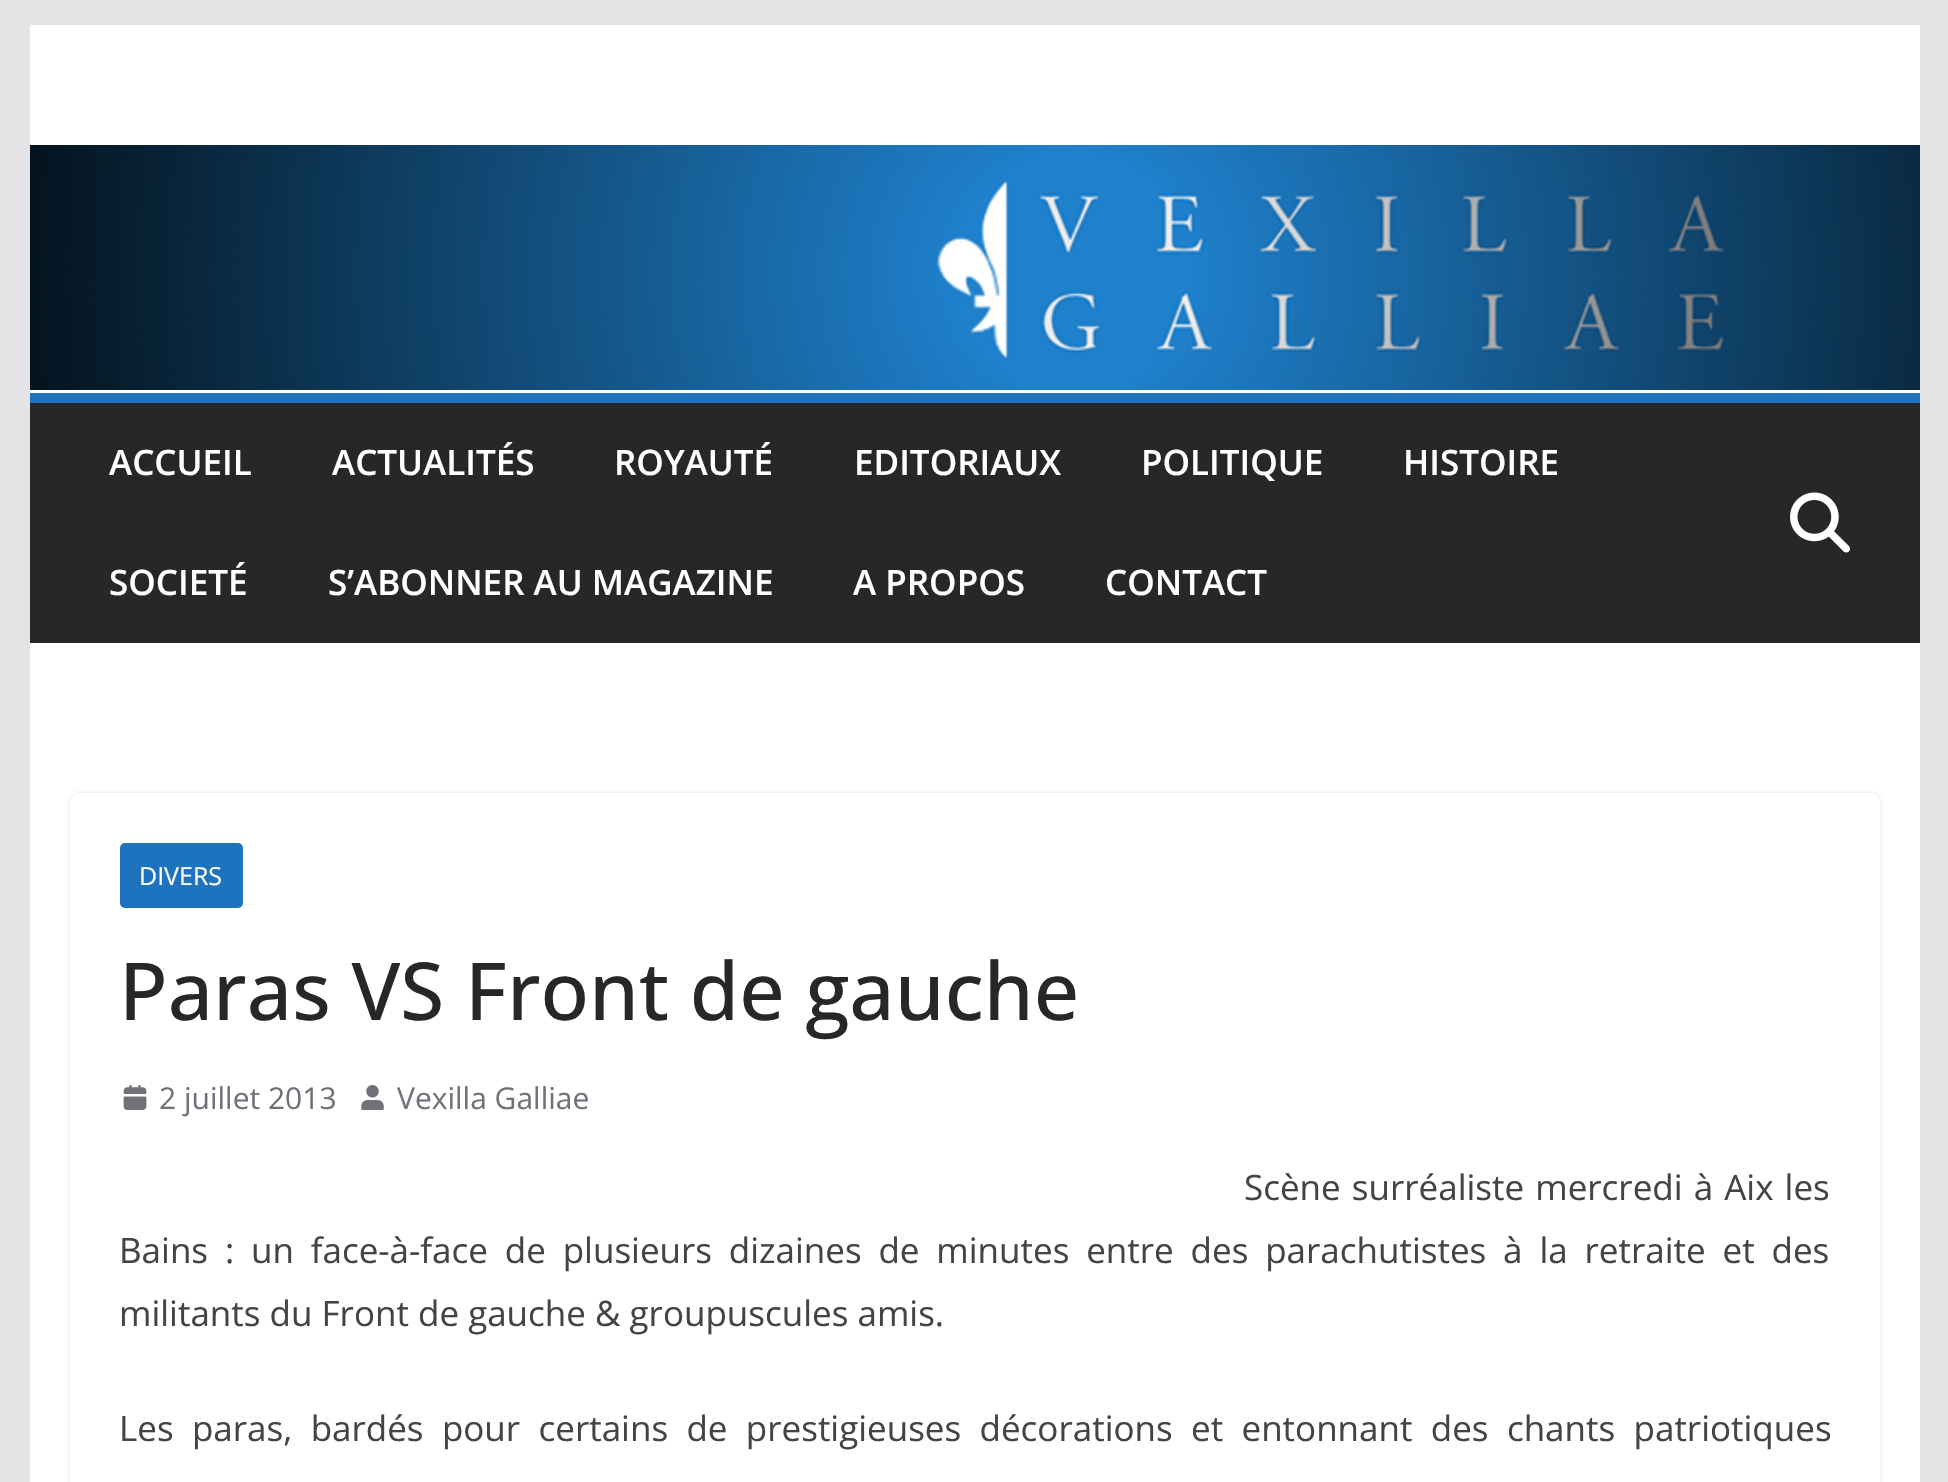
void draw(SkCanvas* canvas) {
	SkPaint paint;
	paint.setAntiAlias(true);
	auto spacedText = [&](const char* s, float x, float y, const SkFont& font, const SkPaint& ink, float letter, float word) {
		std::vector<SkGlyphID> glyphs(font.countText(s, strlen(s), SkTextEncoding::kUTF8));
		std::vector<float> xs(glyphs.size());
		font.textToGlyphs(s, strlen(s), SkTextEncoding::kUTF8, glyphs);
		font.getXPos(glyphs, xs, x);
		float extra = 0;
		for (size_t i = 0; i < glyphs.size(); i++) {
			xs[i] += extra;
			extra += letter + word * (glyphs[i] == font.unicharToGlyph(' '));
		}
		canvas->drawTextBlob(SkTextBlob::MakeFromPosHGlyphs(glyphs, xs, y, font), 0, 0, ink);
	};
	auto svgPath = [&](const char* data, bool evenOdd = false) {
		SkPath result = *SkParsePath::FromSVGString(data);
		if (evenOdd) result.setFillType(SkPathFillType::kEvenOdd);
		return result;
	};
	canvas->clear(0xffe4e4e7);
	paint.setColor(0xffffffff);
	canvas->drawRect(SkRect::MakeXYWH(30, 25, 1890, 368), paint);
	canvas->drawImageRect(SkImages::DeferredFromEncodedData(SkData::MakeFromFileName("img1.png")), SkRect::MakeXYWH(30, 145, 1890, 245), SkSamplingOptions());
	paint.setColor(0xff27272a);
	canvas->drawRect(SkRect::MakeXYWH(30, 403, 1890, 240), paint);
	paint.setColor(0xff1e73be);
	canvas->drawRect(SkRect::MakeXYWH(30, 393, 1890, 10), paint);
	SkFont f1(fontMgr->matchFamilyStyle("Open Sans", SkFontStyle(600, SkFontStyle::kNormal_Width, SkFontStyle::kUpright_Slant)), 35);
	f1.setSubpixel(true);
	paint.setColor(0xffffffff);
	canvas->drawString("ACCUEIL", 109, 475, f1, paint);
	canvas->drawString("ACTUALITÉS", 332, 475, f1, paint);
	canvas->drawString("ROYAUTÉ", 614, 475, f1, paint);
	canvas->drawString("EDITORIAUX", 854, 475, f1, paint);
	canvas->drawString("POLITIQUE", 1141, 475, f1, paint);
	canvas->drawString("HISTOIRE", 1403, 475, f1, paint);
	canvas->drawString("SOCIETÉ", 109, 595, f1, paint);
	canvas->drawString("S’ABONNER AU MAGAZINE", 328, 595, f1, paint);
	canvas->drawString("A PROPOS", 853, 595, f1, paint);
	canvas->drawString("CONTACT", 1105, 595, f1, paint);
	canvas->drawImageRect(SkImages::DeferredFromEncodedData(SkData::MakeFromFileName("img2.png")), SkRect::MakeXYWH(1790, 492, 60, 61), SkSamplingOptions());
	canvas->drawRect(SkRect::MakeXYWH(30, 643, 1890, 839), paint);
	canvas->save();
	canvas->clipPath(svgPath("M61 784H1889V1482H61ZM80 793H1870C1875.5 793 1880 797.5 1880 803V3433C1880 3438.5 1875.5 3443 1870 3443H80C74.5 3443 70 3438.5 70 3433V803C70 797.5 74.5 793 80 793Z", true), true);
	paint.setColor(0xffe4e4e7);
	paint.setMaskFilter(SkMaskFilter::MakeBlur(kNormal_SkBlurStyle, 2.5));
	canvas->drawRoundRect(SkRect::MakeXYWH(70, 793, 1810, 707), 10, 10, paint);
	paint.setMaskFilter(nullptr);
	canvas->restore();
	paint.setColor(0xff1e73be);
	canvas->drawRoundRect(SkRect::MakeXYWH(120, 843, 123, 65), 5, 5, paint);
	SkFont f2(fontMgr->matchFamilyStyle("Open Sans", SkFontStyle::Normal()), 25);
	f2.setSubpixel(true);
	paint.setColor(0xffffffff);
	canvas->drawString("DIVERS", 139, 885, f2, paint);
	SkFont f3(fontMgr->matchFamilyStyle("Open Sans", SkFontStyle(500, SkFontStyle::kNormal_Width, SkFontStyle::kUpright_Slant)), 80);
	f3.setSubpixel(true);
	paint.setColor(0xff27272a);
	canvas->drawString("Paras VS Front de gauche", 119, 1020, f3, paint);
	canvas->drawImageRect(SkImages::DeferredFromEncodedData(SkData::MakeFromFileName("img3.png")), SkRect::MakeXYWH(123, 1085, 24, 25), SkSamplingOptions());
	SkFont f4(fontMgr->matchFamilyStyle("Open Sans", SkFontStyle::Normal()), 30);
	f4.setSubpixel(true);
	paint.setColor(0xff71717a);
	canvas->drawString("2 juillet 2013", 159, 1109, f4, paint);
	canvas->drawImageRect(SkImages::DeferredFromEncodedData(SkData::MakeFromFileName("img4.png")), SkRect::MakeXYWH(361, 1085, 23, 25), SkSamplingOptions());
	canvas->drawString("Vexilla Galliae", 397, 1109, f4, paint);
	SkFont f5(fontMgr->matchFamilyStyle("Open Sans", SkFontStyle::Normal()), 35);
	f5.setSubpixel(true);
	paint.setColor(0xff444444);
	spacedText("Scène surréaliste mercredi à Aix les", 1244, 1200, f5, paint, 0, 2);
	spacedText("Bains : un face-à-face de plusieurs dizaines de minutes entre des parachutistes à la retraite et des", 119, 1263, f5, paint, 0, 7.75);
	canvas->drawString("militants du Front de gauche & groupuscules amis.", 119, 1326, f5, paint);
	spacedText("Les paras, bardés pour certains de prestigieuses décorations et entonnant des chants patriotiques", 119, 1441, f5, paint, 0, 9.25);
}
